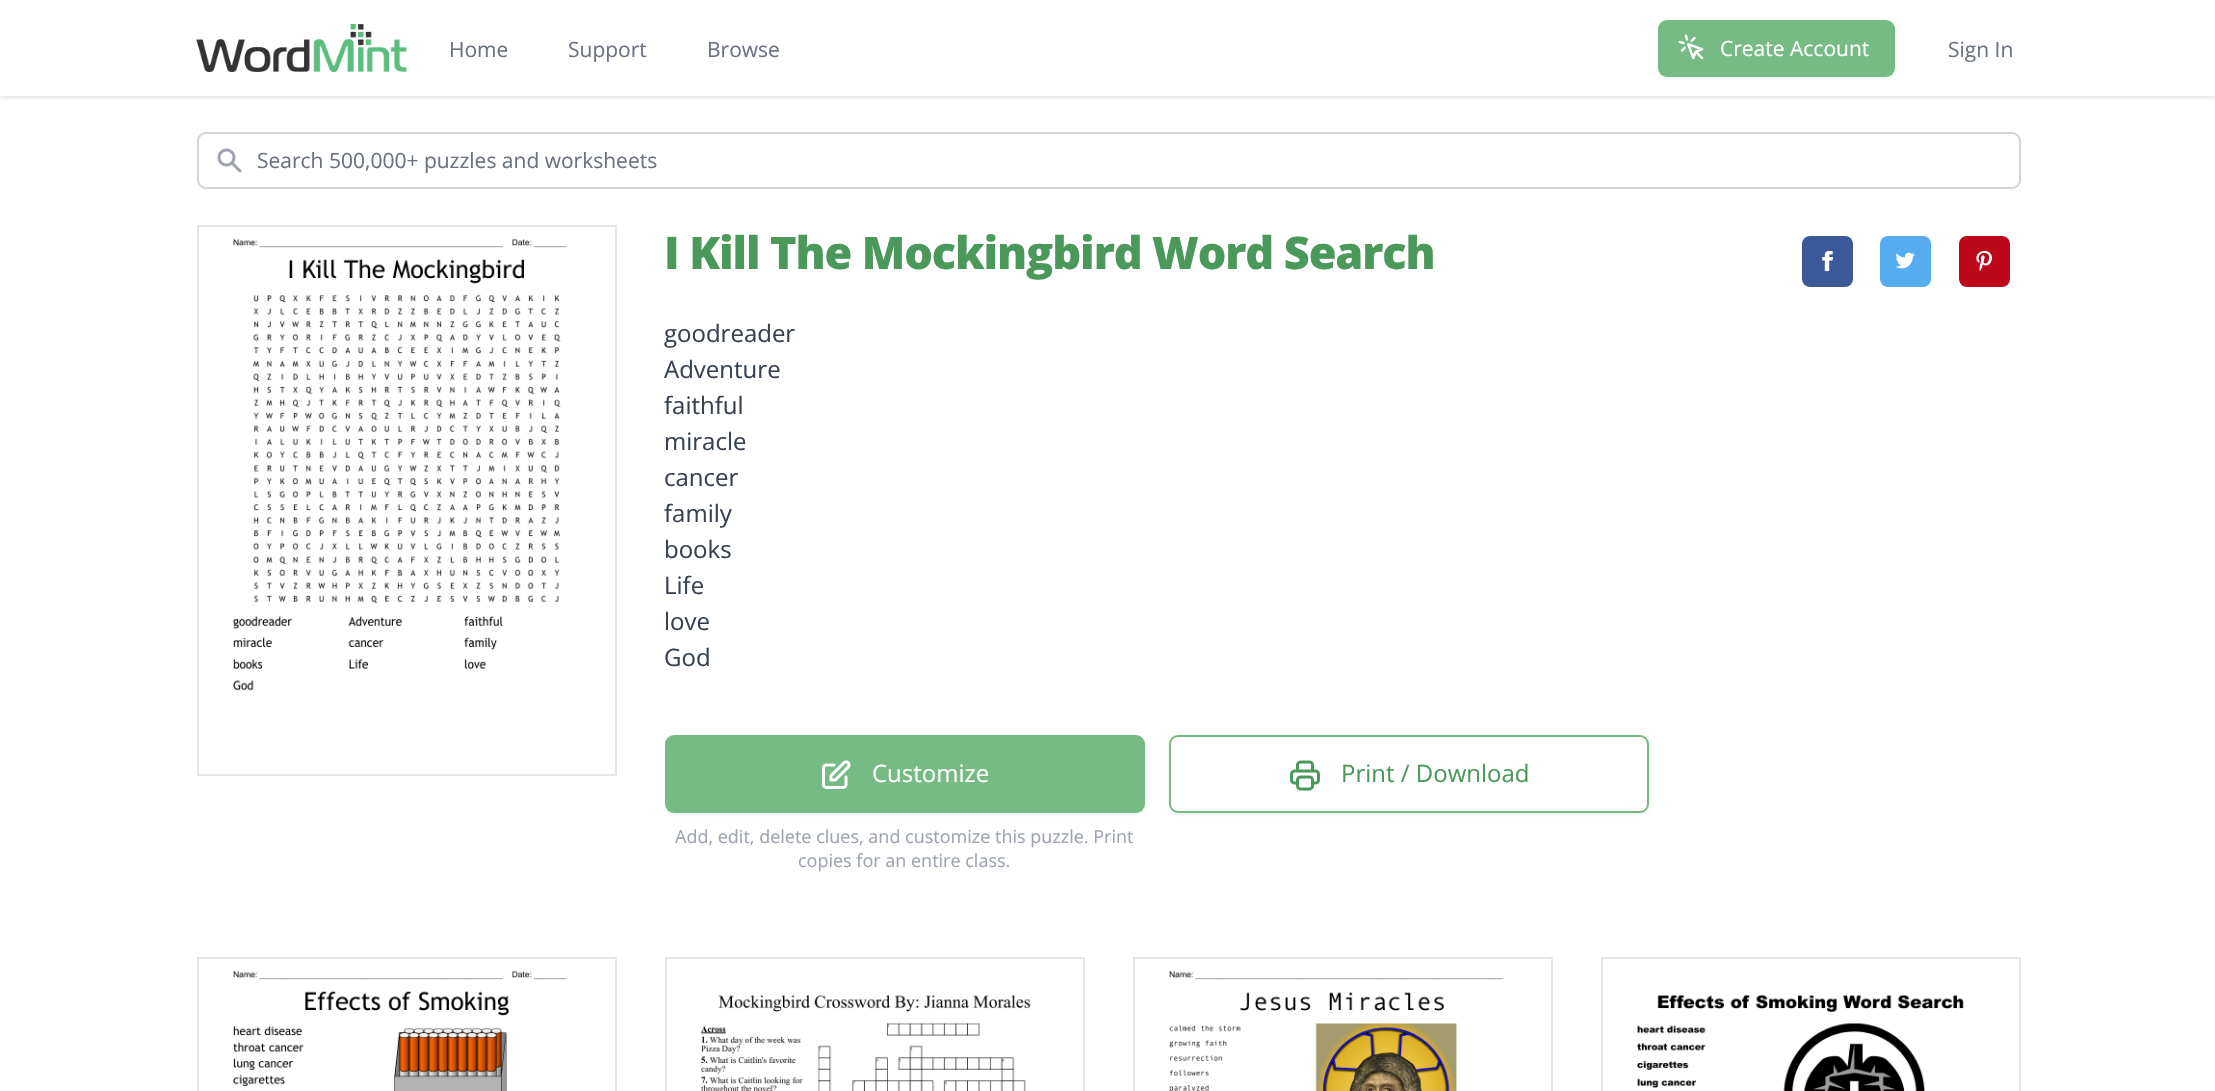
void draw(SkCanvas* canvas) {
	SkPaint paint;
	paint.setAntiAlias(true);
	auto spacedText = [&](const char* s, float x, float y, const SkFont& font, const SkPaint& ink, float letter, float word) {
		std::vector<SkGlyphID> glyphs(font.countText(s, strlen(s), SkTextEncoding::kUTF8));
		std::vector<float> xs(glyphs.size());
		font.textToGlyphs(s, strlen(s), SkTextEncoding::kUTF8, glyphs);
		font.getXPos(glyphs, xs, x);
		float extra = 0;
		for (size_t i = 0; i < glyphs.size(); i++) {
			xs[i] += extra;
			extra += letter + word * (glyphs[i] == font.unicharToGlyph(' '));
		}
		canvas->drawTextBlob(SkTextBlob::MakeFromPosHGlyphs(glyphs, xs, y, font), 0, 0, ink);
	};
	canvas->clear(0xffffffff);
	canvas->save();
	canvas->clipRect(SkRect::MakeXYWH(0, 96, 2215, 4));
	paint.setColor(0x1a000000);
	paint.setMaskFilter(SkMaskFilter::MakeBlur(kNormal_SkBlurStyle, 2));
	canvas->drawRect(SkRect::MakeXYWH(0, 2, 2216, 96), paint);
	paint.setMaskFilter(nullptr);
	canvas->restore();
	canvas->drawImageRect(SkImages::DeferredFromEncodedData(SkData::MakeFromFileName("img1.png")), SkRect::MakeXYWH(196, 24, 211, 48), SkSamplingOptions());
	SkFont f1(fontMgr->matchFamilyStyle("Open Sans", SkFontStyle::Normal()), 21);
	f1.setSubpixel(true);
	paint.setColor(0xff6b7280);
	canvas->drawString("Home", 449, 57, f1, paint);
	canvas->drawString("Support", 568, 57, f1, paint);
	canvas->drawString("Browse", 707, 57, f1, paint);
	paint.setColor(0x0d000000);
	paint.setMaskFilter(SkMaskFilter::MakeBlur(kNormal_SkBlurStyle, 1.5));
	canvas->drawRoundRect(SkRect::MakeXYWH(1658, 21, 237, 57), 9, 9, paint);
	paint.setMaskFilter(nullptr);
	paint.setColor(0xff75bb83);
	canvas->drawRoundRect(SkRect::MakeXYWH(1658, 20, 237, 57), 9, 9, paint);
	canvas->drawImageRect(SkImages::DeferredFromEncodedData(SkData::MakeFromFileName("img2.png")), SkRect::MakeXYWH(1678, 34, 26, 26), SkSamplingOptions());
	paint.setColor(0xffffffff);
	canvas->drawString("Create Account", 1720, 56, f1, paint);
	paint.setColor(0xff6b7280);
	canvas->drawString("Sign In", 1948, 57, f1, paint);
	paint.setStroke(true);
	paint.setStrokeWidth(2);
	paint.setColor(0xffd1d5db);
	canvas->drawRoundRect(SkRect::MakeXYWH(198, 133, 1822, 55), 8, 8, paint);
	canvas->drawImageRect(SkImages::DeferredFromEncodedData(SkData::MakeFromFileName("img3.png")), SkRect::MakeXYWH(217, 148, 25, 25), SkSamplingOptions());
	paint.setStroke(false);
	paint.setColor(0xff6b7280);
	canvas->drawString("Search 500,000+ puzzles and worksheets", 257, 168, f1, paint);
	paint.setStroke(true);
	paint.setColor(0xffe5e7eb);
	canvas->drawRect(SkRect::MakeXYWH(198, 226, 418, 549), paint);
	canvas->drawImageRect(SkImages::DeferredFromEncodedData(SkData::MakeFromFileName("img4.png")), SkRect::MakeXYWH(233, 238, 334, 453), SkSamplingOptions());
	SkFont f2(fontMgr->matchFamilyStyle("Open Sans", SkFontStyle(800, SkFontStyle::kNormal_Width, SkFontStyle::kUpright_Slant)), 45);
	f2.setSubpixel(true);
	paint.setStroke(false);
	paint.setColor(0xff4b985b);
	spacedText("I Kill The Mockingbird Word Search", 664, 269, f2, paint, -1.1, 0);
	paint.setColor(0xff3b5998);
	canvas->drawRoundRect(SkRect::MakeXYWH(1802, 236, 51, 51), 8, 8, paint);
	canvas->drawImageRect(SkImages::DeferredFromEncodedData(SkData::MakeFromFileName("img5.png")), SkRect::MakeXYWH(1822, 251, 11, 21), SkSamplingOptions());
	paint.setColor(0xff55acee);
	canvas->drawRoundRect(SkRect::MakeXYWH(1880, 236, 51, 51), 8, 8, paint);
	canvas->drawImageRect(SkImages::DeferredFromEncodedData(SkData::MakeFromFileName("img6.png")), SkRect::MakeXYWH(1895, 252, 20, 17), SkSamplingOptions());
	paint.setColor(0xffbd081c);
	canvas->drawRoundRect(SkRect::MakeXYWH(1959, 236, 51, 51), 8, 8, paint);
	canvas->drawImageRect(SkImages::DeferredFromEncodedData(SkData::MakeFromFileName("img7.png")), SkRect::MakeXYWH(1976, 251, 16, 20), SkSamplingOptions());
	SkFont f3(fontMgr->matchFamilyStyle("Open Sans", SkFontStyle::Normal()), 24);
	f3.setSubpixel(true);
	paint.setColor(0xff374151);
	canvas->drawString("goodreader", 664, 342, f3, paint);
	canvas->drawString("Adventure", 664, 378, f3, paint);
	canvas->drawString("faithful", 664, 414, f3, paint);
	canvas->drawString("miracle", 664, 450, f3, paint);
	canvas->drawString("cancer", 664, 486, f3, paint);
	canvas->drawString("family", 664, 522, f3, paint);
	canvas->drawString("books", 664, 558, f3, paint);
	canvas->drawString("Life", 664, 594, f3, paint);
	canvas->drawString("love", 664, 630, f3, paint);
	canvas->drawString("God", 664, 666, f3, paint);
	paint.setColor(0x0d000000);
	paint.setMaskFilter(SkMaskFilter::MakeBlur(kNormal_SkBlurStyle, 1.5));
	canvas->drawRoundRect(SkRect::MakeXYWH(665, 737, 480, 78), 9, 9, paint);
	paint.setMaskFilter(nullptr);
	paint.setColor(0xff75bb83);
	canvas->drawRoundRect(SkRect::MakeXYWH(665, 735, 480, 78), 9, 9, paint);
	canvas->drawImageRect(SkImages::DeferredFromEncodedData(SkData::MakeFromFileName("img8.png")), SkRect::MakeXYWH(822, 760, 29, 29), SkSamplingOptions());
	paint.setColor(0xffffffff);
	canvas->drawString("Customize", 872, 782, f3, paint);
	SkFont f4(fontMgr->matchFamilyStyle("Open Sans", SkFontStyle::Normal()), 18);
	f4.setSubpixel(true);
	paint.setColor(0xff9ca3af);
	canvas->drawString("Add, edit, delete clues, and customize this puzzle. Print", 675, 843, f4, paint);
	canvas->drawString("copies for an entire class.", 798, 867, f4, paint);
	paint.setColor(0x0d000000);
	paint.setMaskFilter(SkMaskFilter::MakeBlur(kNormal_SkBlurStyle, 1.5));
	canvas->drawRoundRect(SkRect::MakeXYWH(1169, 737, 480, 78), 9, 9, paint);
	paint.setMaskFilter(nullptr);
	paint.setColor(0xffffffff);
	canvas->drawRoundRect(SkRect::MakeXYWH(1170, 736, 478, 76), 8, 8, paint);
	paint.setStroke(true);
	paint.setColor(0xff75bb83);
	canvas->drawRoundRect(SkRect::MakeXYWH(1170, 736, 478, 76), 8, 8, paint);
	canvas->drawImageRect(SkImages::DeferredFromEncodedData(SkData::MakeFromFileName("img9.png")), SkRect::MakeXYWH(1290, 760, 30, 31), SkSamplingOptions());
	paint.setStroke(false);
	paint.setColor(0xff4b985b);
	canvas->drawString("Print / Download", 1341, 782, f3, paint);
	paint.setStroke(true);
	paint.setColor(0xffe5e7eb);
	canvas->drawRect(SkRect::MakeXYWH(198, 958, 418, 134), paint);
	canvas->drawImageRect(SkImages::DeferredFromEncodedData(SkData::MakeFromFileName("img10.png")), SkRect::MakeXYWH(233, 970, 334, 121), SkSamplingOptions());
	canvas->drawRect(SkRect::MakeXYWH(666, 958, 418, 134), paint);
	canvas->drawImageRect(SkImages::DeferredFromEncodedData(SkData::MakeFromFileName("img11.png")), SkRect::MakeXYWH(701, 994, 330, 97), SkSamplingOptions());
	canvas->drawRect(SkRect::MakeXYWH(1134, 958, 418, 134), paint);
	canvas->drawImageRect(SkImages::DeferredFromEncodedData(SkData::MakeFromFileName("img12.png")), SkRect::MakeXYWH(1169, 970, 335, 121), SkSamplingOptions());
	canvas->drawRect(SkRect::MakeXYWH(1602, 958, 418, 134), paint);
	canvas->drawImageRect(SkImages::DeferredFromEncodedData(SkData::MakeFromFileName("img13.png")), SkRect::MakeXYWH(1637, 994, 327, 97), SkSamplingOptions());
}
